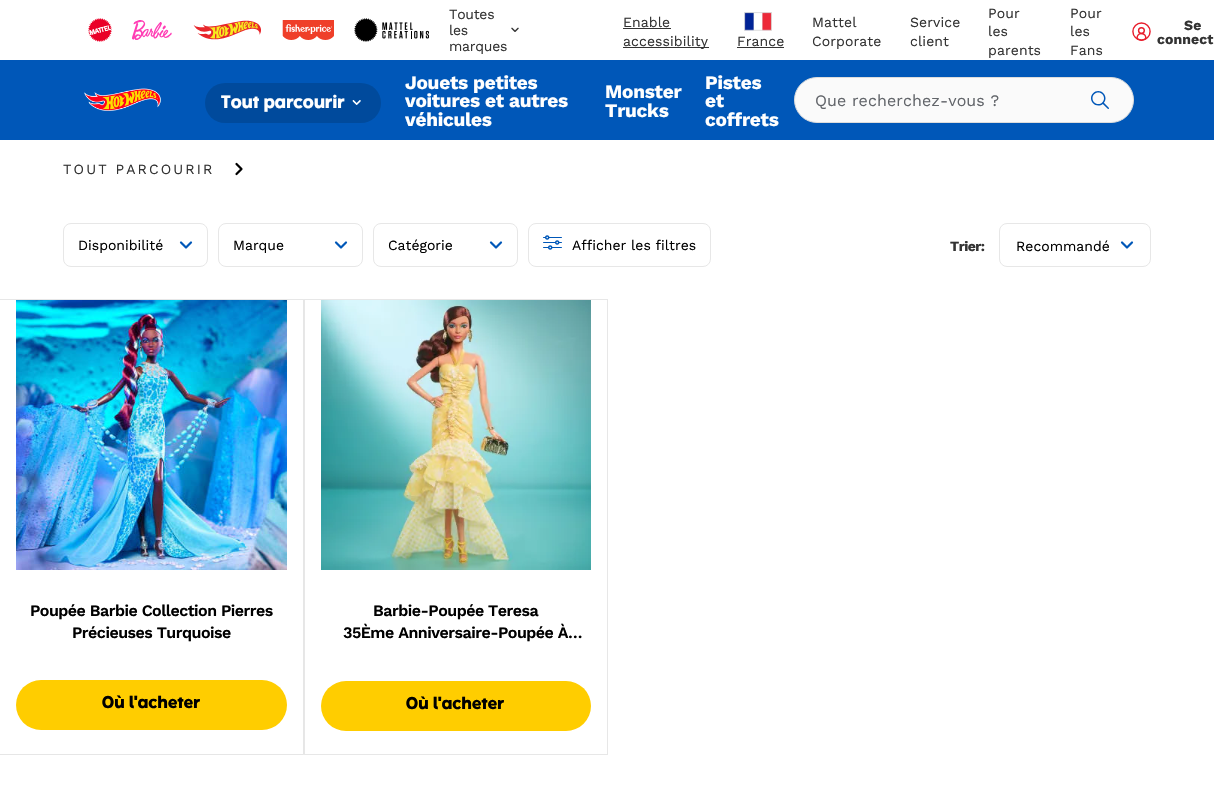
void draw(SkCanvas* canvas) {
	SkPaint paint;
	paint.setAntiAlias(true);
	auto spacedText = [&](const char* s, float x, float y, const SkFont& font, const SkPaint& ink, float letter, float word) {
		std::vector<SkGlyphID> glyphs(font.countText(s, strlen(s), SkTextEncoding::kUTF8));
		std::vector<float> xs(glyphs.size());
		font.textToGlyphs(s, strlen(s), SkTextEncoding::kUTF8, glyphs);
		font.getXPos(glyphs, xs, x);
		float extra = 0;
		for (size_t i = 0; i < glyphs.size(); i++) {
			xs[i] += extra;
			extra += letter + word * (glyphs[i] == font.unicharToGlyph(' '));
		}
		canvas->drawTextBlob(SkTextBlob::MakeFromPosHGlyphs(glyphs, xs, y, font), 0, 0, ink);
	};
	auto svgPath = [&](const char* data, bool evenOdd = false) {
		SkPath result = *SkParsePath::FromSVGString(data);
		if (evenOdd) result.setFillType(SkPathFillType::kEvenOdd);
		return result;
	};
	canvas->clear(0xffffffff);
	canvas->drawImageRect(SkImages::DeferredFromEncodedData(SkData::MakeFromFileName("img1.png")), SkRect::MakeXYWH(88, 18, 24, 24), SkSamplingOptions());
	canvas->drawImageRect(SkImages::DeferredFromEncodedData(SkData::MakeFromFileName("img2.png")), SkRect::MakeXYWH(132, 20, 40, 20), SkSamplingOptions());
	canvas->drawImageRect(SkImages::DeferredFromEncodedData(SkData::MakeFromFileName("img3.png")), SkRect::MakeXYWH(193, 20, 68, 20), SkSamplingOptions());
	canvas->drawImageRect(SkImages::DeferredFromEncodedData(SkData::MakeFromFileName("img4.png")), SkRect::MakeXYWH(282, 20, 52, 20), SkSamplingOptions());
	canvas->drawImageRect(SkImages::DeferredFromEncodedData(SkData::MakeFromFileName("img5.png")), SkRect::MakeXYWH(354, 18, 75, 24), SkSamplingOptions());
	SkFont f1(fontMgr->matchFamilyStyle("Work Sans", SkFontStyle::Normal()), 14);
	f1.setSubpixel(true);
	paint.setColor(0xff333333);
	spacedText("Toutes", 449, 19, f1, paint, -0.25, 0);
	spacedText("les", 449, 35, f1, paint, -0.25, 0);
	spacedText("marques", 449, 51, f1, paint, -0.25, 0);
	canvas->drawImageRect(SkImages::DeferredFromEncodedData(SkData::MakeFromFileName("img6.png")), SkRect::MakeXYWH(511, 27, 8, 5), SkSamplingOptions());
	spacedText("Enable", 623, 27, f1, paint, 0.1, 0);
	canvas->drawRect(SkRect::MakeXYWH(623, 28, 48, 1), paint);
	canvas->drawRect(SkRect::MakeXYWH(623, 47, 86, 1), paint);
	spacedText("accessibility", 623, 46, f1, paint, 0.1, 0);
	canvas->drawImageRect(SkImages::DeferredFromEncodedData(SkData::MakeFromFileName("img7.png")), SkRect::MakeXYWH(744, 12, 28, 19), SkSamplingOptions());
	spacedText("France", 737, 46, f1, paint, 0.1, 0);
	canvas->drawRect(SkRect::MakeXYWH(737, 47, 47, 1), paint);
	spacedText("Mattel", 812, 27, f1, paint, 0.1, 0);
	spacedText("Corporate", 812, 46, f1, paint, 0.1, 0);
	spacedText("Service", 910, 27, f1, paint, 0.1, 0);
	spacedText("client", 910, 46, f1, paint, 0.1, 0);
	spacedText("Pour", 988, 18, f1, paint, 0.1, 0);
	spacedText("les", 988, 36, f1, paint, 0.1, 0);
	spacedText("parents", 988, 55, f1, paint, 0.1, 0);
	spacedText("Pour", 1070, 18, f1, paint, 0.1, 0);
	spacedText("les", 1070, 36, f1, paint, 0.1, 0);
	spacedText("Fans", 1070, 55, f1, paint, 0.1, 0);
	canvas->drawImageRect(SkImages::DeferredFromEncodedData(SkData::MakeFromFileName("img8.png")), SkRect::MakeXYWH(1132, 22, 19, 19), SkSamplingOptions());
	SkFont f2(fontMgr->matchFamilyStyle("Work Sans", SkFontStyle::Bold()), 14);
	f2.setSubpixel(true);
	spacedText("Se", 1184, 30, f2, paint, 0.1, 0);
	spacedText("connect", 1157, 44, f2, paint, 0.1, 0);
	paint.setColor(0xff0057b8);
	canvas->drawRect(SkRect::MakeXYWH(0, 60, 1214, 80), paint);
	canvas->drawImageRect(SkImages::DeferredFromEncodedData(SkData::MakeFromFileName("img9.png")), SkRect::MakeXYWH(84, 88, 77, 23), SkSamplingOptions());
	paint.setColor(0xff004a9c);
	canvas->drawRoundRect(SkRect::MakeXYWH(205, 83, 176, 40), 20, 20, paint);
	SkFont f3(fontMgr->matchFamilyStyle("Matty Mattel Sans", SkFontStyle::Bold()), 19);
	f3.setSubpixel(true);
	paint.setColor(0xffffffff);
	spacedText("Tout parcourir", 221, 108, f3, paint, 0.2, 0);
	canvas->drawImageRect(SkImages::DeferredFromEncodedData(SkData::MakeFromFileName("img10.png")), SkRect::MakeXYWH(352, 100, 9, 5), SkSamplingOptions());
	SkFont f4(fontMgr->matchFamilyStyle("Work Sans", SkFontStyle::Bold()), 19);
	f4.setSubpixel(true);
	spacedText("Jouets petites", 405, 89, f4, paint, -0.25, 0);
	spacedText("voitures et autres", 405, 107, f4, paint, -0.25, 0);
	spacedText("véhicules", 405, 126, f4, paint, -0.25, 0);
	spacedText("Monster", 605, 98, f4, paint, -0.25, 0);
	spacedText("Trucks", 605, 117, f4, paint, -0.25, 0);
	spacedText("Pistes", 705, 89, f4, paint, -0.25, 0);
	spacedText("et", 705, 107, f4, paint, -0.25, 0);
	spacedText("coffrets", 705, 126, f4, paint, -0.25, 0);
	paint.setColor(0xfffafafa);
	canvas->drawRoundRect(SkRect::MakeXYWH(794.5, 77.5, 339, 45), 22.5, 22.5, paint);
	paint.setStroke(true);
	paint.setStrokeWidth(1);
	paint.setColor(0xffdcdcdc);
	canvas->drawRoundRect(SkRect::MakeXYWH(794.5, 77.5, 339, 45), 22.5, 22.5, paint);
	SkFont f5(fontMgr->matchFamilyStyle("Work Sans", SkFontStyle::Normal()), 16);
	f5.setSubpixel(true);
	paint.setStroke(false);
	paint.setColor(0xff62656a);
	spacedText("Que recherchez-vous ?", 815, 106, f5, paint, 0.1, 0);
	canvas->drawImageRect(SkImages::DeferredFromEncodedData(SkData::MakeFromFileName("img11.png")), SkRect::MakeXYWH(1091, 91, 18, 18), SkSamplingOptions());
	paint.setColor(0xff333333);
	spacedText("TOUT PARCOURIR", 63, 174, f1, paint, 2.1, 0);
	canvas->drawImageRect(SkImages::DeferredFromEncodedData(SkData::MakeFromFileName("img12.png")), SkRect::MakeXYWH(235, 162, 8, 14), SkSamplingOptions());
	paint.setStroke(true);
	paint.setColor(0xffe7e7e7);
	canvas->drawRoundRect(SkRect::MakeXYWH(63.5, 223.5, 144, 43), 7.5, 7.5, paint);
	paint.setStroke(false);
	paint.setColor(0xff000000);
	canvas->drawString("Disponibilité", 78, 250, f1, paint);
	paint.setStroke(true);
	paint.setStrokeWidth(2.2);
	paint.setStrokeCap(SkPaint::kRound_Cap);
	paint.setStrokeJoin(SkPaint::kRound_Join);
	paint.setColor(0xff0057b8);
	canvas->drawPath(svgPath("M191 242.5L186 247.5L181 242.5"), paint);
	paint.setStrokeWidth(1);
	paint.setStrokeCap(SkPaint::kButt_Cap);
	paint.setStrokeJoin(SkPaint::kMiter_Join);
	paint.setColor(0xffe7e7e7);
	canvas->drawRoundRect(SkRect::MakeXYWH(218.5, 223.5, 144, 43), 7.5, 7.5, paint);
	paint.setStroke(false);
	paint.setColor(0xff000000);
	canvas->drawString("Marque", 233, 250, f1, paint);
	paint.setStroke(true);
	paint.setStrokeWidth(2.2);
	paint.setStrokeCap(SkPaint::kRound_Cap);
	paint.setStrokeJoin(SkPaint::kRound_Join);
	paint.setColor(0xff0057b8);
	canvas->drawPath(svgPath("M346 242.5L341 247.5L336 242.5"), paint);
	paint.setStrokeWidth(1);
	paint.setStrokeCap(SkPaint::kButt_Cap);
	paint.setStrokeJoin(SkPaint::kMiter_Join);
	paint.setColor(0xffe7e7e7);
	canvas->drawRoundRect(SkRect::MakeXYWH(373.5, 223.5, 144, 43), 7.5, 7.5, paint);
	paint.setStroke(false);
	paint.setColor(0xff000000);
	canvas->drawString("Catégorie", 388, 250, f1, paint);
	paint.setStroke(true);
	paint.setStrokeWidth(2.2);
	paint.setStrokeCap(SkPaint::kRound_Cap);
	paint.setStrokeJoin(SkPaint::kRound_Join);
	paint.setColor(0xff0057b8);
	canvas->drawPath(svgPath("M501 242.5L496 247.5L491 242.5"), paint);
	paint.setStrokeWidth(1);
	paint.setStrokeCap(SkPaint::kButt_Cap);
	paint.setStrokeJoin(SkPaint::kMiter_Join);
	paint.setColor(0xffe7e7e7);
	canvas->drawRoundRect(SkRect::MakeXYWH(528.5, 223.5, 182, 43), 7.5, 7.5, paint);
	canvas->drawImageRect(SkImages::DeferredFromEncodedData(SkData::MakeFromFileName("img13.png")), SkRect::MakeXYWH(543, 235, 19, 15), SkSamplingOptions());
	paint.setStroke(false);
	paint.setColor(0xff000000);
	canvas->drawString("Afficher les filtres", 572, 250, f1, paint);
	paint.setColor(0xff333333);
	spacedText("Trier:", 950, 251, f2, paint, -0.5, 0);
	paint.setStroke(true);
	paint.setColor(0xffe7e7e7);
	canvas->drawRoundRect(SkRect::MakeXYWH(999.5, 223.5, 151, 43), 7.5, 7.5, paint);
	paint.setStroke(false);
	paint.setColor(0xff000000);
	canvas->drawString("Recommandé", 1016, 251, f1, paint);
	paint.setStroke(true);
	paint.setStrokeWidth(2.2);
	paint.setStrokeCap(SkPaint::kRound_Cap);
	paint.setStrokeJoin(SkPaint::kRound_Join);
	paint.setColor(0xff0057b8);
	canvas->drawPath(svgPath("M1132 242.5L1127 247.5L1122 242.5"), paint);
	paint.setStroke(false);
	paint.setColor(0xffe7e7e7);
	canvas->drawPath(svgPath("M0 299H304L303 300H0Z"), paint);
	paint.setColor(0x1a0e0e0e);
	canvas->drawPath(svgPath("M304 299V755L303 754V300Z"), paint);
	canvas->drawPath(svgPath("M304 755H0V754H303Z"), paint);
	canvas->drawImageRect(SkImages::DeferredFromEncodedData(SkData::MakeFromFileName("img14.png")), SkRect::MakeXYWH(16, 300, 271, 270), SkSamplingOptions());
	SkFont f6(fontMgr->matchFamilyStyle("Work Sans", SkFontStyle(600, SkFontStyle::kNormal_Width, SkFontStyle::kUpright_Slant)), 16);
	f6.setSubpixel(true);
	paint.setColor(0xff000000);
	spacedText("Poupée Barbie Collection Pierres", 30, 616, f6, paint, -0.5, 0);
	spacedText("Précieuses Turquoise", 72, 638, f6, paint, -0.5, 0);
	paint.setColor(0xffffcd00);
	canvas->drawRoundRect(SkRect::MakeXYWH(16, 680, 271, 50), 25, 25, paint);
	SkFont f7(fontMgr->matchFamilyStyle("Matty Mattel Sans", SkFontStyle::Bold()), 18);
	f7.setSubpixel(true);
	paint.setColor(0xff000000);
	spacedText("Où l'acheter", 102, 708, f7, paint, 0.25, 0);
	paint.setStroke(true);
	paint.setStrokeWidth(1);
	paint.setStrokeCap(SkPaint::kButt_Cap);
	paint.setStrokeJoin(SkPaint::kMiter_Join);
	paint.setColor(0xffe7e7e7);
	canvas->drawRect(SkRect::MakeXYWH(304.5, 299.5, 303, 455), paint);
	canvas->drawImageRect(SkImages::DeferredFromEncodedData(SkData::MakeFromFileName("img15.png")), SkRect::MakeXYWH(321, 300, 270, 270), SkSamplingOptions());
	paint.setStroke(false);
	paint.setColor(0xff000000);
	spacedText("Barbie-Poupée Teresa", 373, 616, f6, paint, -0.5, 0);
	spacedText("35Ème Anniversaire-Poupée À…", 343, 638, f6, paint, -0.5, 0);
	paint.setColor(0xffffcd00);
	canvas->drawRoundRect(SkRect::MakeXYWH(321, 681, 270, 50), 25, 25, paint);
	paint.setColor(0xff000000);
	spacedText("Où l'acheter", 406, 709, f7, paint, 0.25, 0);
}
